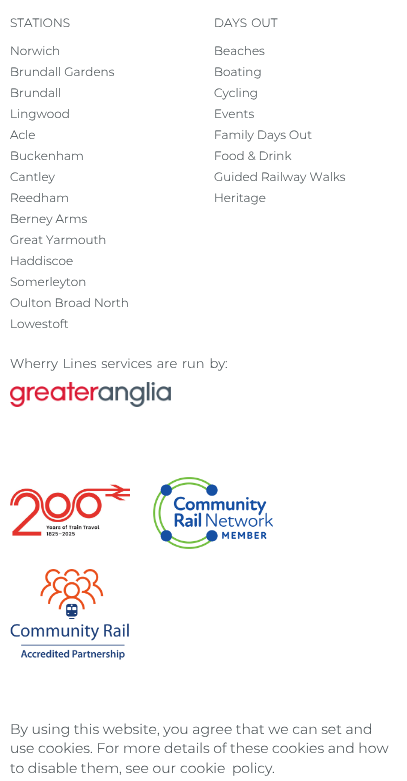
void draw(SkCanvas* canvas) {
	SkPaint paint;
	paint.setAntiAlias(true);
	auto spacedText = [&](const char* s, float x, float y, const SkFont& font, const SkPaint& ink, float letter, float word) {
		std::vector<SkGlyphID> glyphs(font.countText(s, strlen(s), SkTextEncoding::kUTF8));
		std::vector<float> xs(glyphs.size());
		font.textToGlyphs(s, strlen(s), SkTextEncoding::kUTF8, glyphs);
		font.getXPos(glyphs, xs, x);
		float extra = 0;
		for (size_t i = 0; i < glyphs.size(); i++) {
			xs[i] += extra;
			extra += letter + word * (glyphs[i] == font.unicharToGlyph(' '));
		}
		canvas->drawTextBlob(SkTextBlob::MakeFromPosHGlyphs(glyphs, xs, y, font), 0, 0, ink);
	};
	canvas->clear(0xffffffff);
	SkFont f1(fontMgr->matchFamilyStyle("Montserrat", SkFontStyle(300, SkFontStyle::kNormal_Width, SkFontStyle::kUpright_Slant)), 12);
	f1.setSubpixel(true);
	paint.setColor(0xff424a4e);
	canvas->drawString("STATIONS", 10, 27, f1, paint);
	canvas->drawString("Norwich", 10, 55, f1, paint);
	canvas->drawString("Brundall Gardens", 10, 76, f1, paint);
	canvas->drawString("Brundall", 10, 97, f1, paint);
	canvas->drawString("Lingwood", 10, 118, f1, paint);
	canvas->drawString("Acle", 10, 139, f1, paint);
	canvas->drawString("Buckenham", 10, 160, f1, paint);
	canvas->drawString("Cantley", 10, 181, f1, paint);
	canvas->drawString("Reedham", 10, 202, f1, paint);
	canvas->drawString("Berney Arms", 10, 223, f1, paint);
	canvas->drawString("Great Yarmouth", 10, 244, f1, paint);
	canvas->drawString("Haddiscoe", 10, 265, f1, paint);
	canvas->drawString("Somerleyton", 10, 286, f1, paint);
	canvas->drawString("Oulton Broad North", 10, 307, f1, paint);
	canvas->drawString("Lowestoft", 10, 328, f1, paint);
	spacedText("DAYS OUT", 214, 27, f1, paint, 0, 1);
	canvas->drawString("Beaches", 214, 55, f1, paint);
	canvas->drawString("Boating", 214, 76, f1, paint);
	canvas->drawString("Cycling", 214, 97, f1, paint);
	canvas->drawString("Events", 214, 118, f1, paint);
	canvas->drawString("Family Days Out", 214, 139, f1, paint);
	canvas->drawString("Food & Drink", 214, 160, f1, paint);
	canvas->drawString("Guided Railway Walks", 214, 181, f1, paint);
	canvas->drawString("Heritage", 214, 202, f1, paint);
	SkFont f2(fontMgr->matchFamilyStyle("Montserrat", SkFontStyle(300, SkFontStyle::kNormal_Width, SkFontStyle::kUpright_Slant)), 13);
	f2.setSubpixel(true);
	spacedText("Wherry Lines services are run by:", 10, 368, f2, paint, 0, 1.5);
	canvas->drawImageRect(SkImages::DeferredFromEncodedData(SkData::MakeFromFileName("img1.png")), SkRect::MakeXYWH(10, 382, 161, 25), SkSamplingOptions());
	canvas->drawImageRect(SkImages::DeferredFromEncodedData(SkData::MakeFromFileName("img2.png")), SkRect::MakeXYWH(10, 484, 120, 52), SkSamplingOptions());
	canvas->drawImageRect(SkImages::DeferredFromEncodedData(SkData::MakeFromFileName("img3.png")), SkRect::MakeXYWH(153, 477, 120, 72), SkSamplingOptions());
	canvas->drawImageRect(SkImages::DeferredFromEncodedData(SkData::MakeFromFileName("img4.png")), SkRect::MakeXYWH(10, 569, 119, 91), SkSamplingOptions());
	SkFont f3(fontMgr->matchFamilyStyle("Montserrat", SkFontStyle(300, SkFontStyle::kNormal_Width, SkFontStyle::kUpright_Slant)), 14);
	f3.setSubpixel(true);
	canvas->drawString("By using this website, you agree that we can set and", 10, 734, f3, paint);
	canvas->drawString("use cookies. For more details of these cookies and how", 10, 753, f3, paint);
	canvas->drawString("to disable them, see our", 10, 773, f3, paint);
	spacedText("cookie policy", 180, 773, f3, paint, 0, 3);
	canvas->drawString(".", 272, 773, f3, paint);
}
